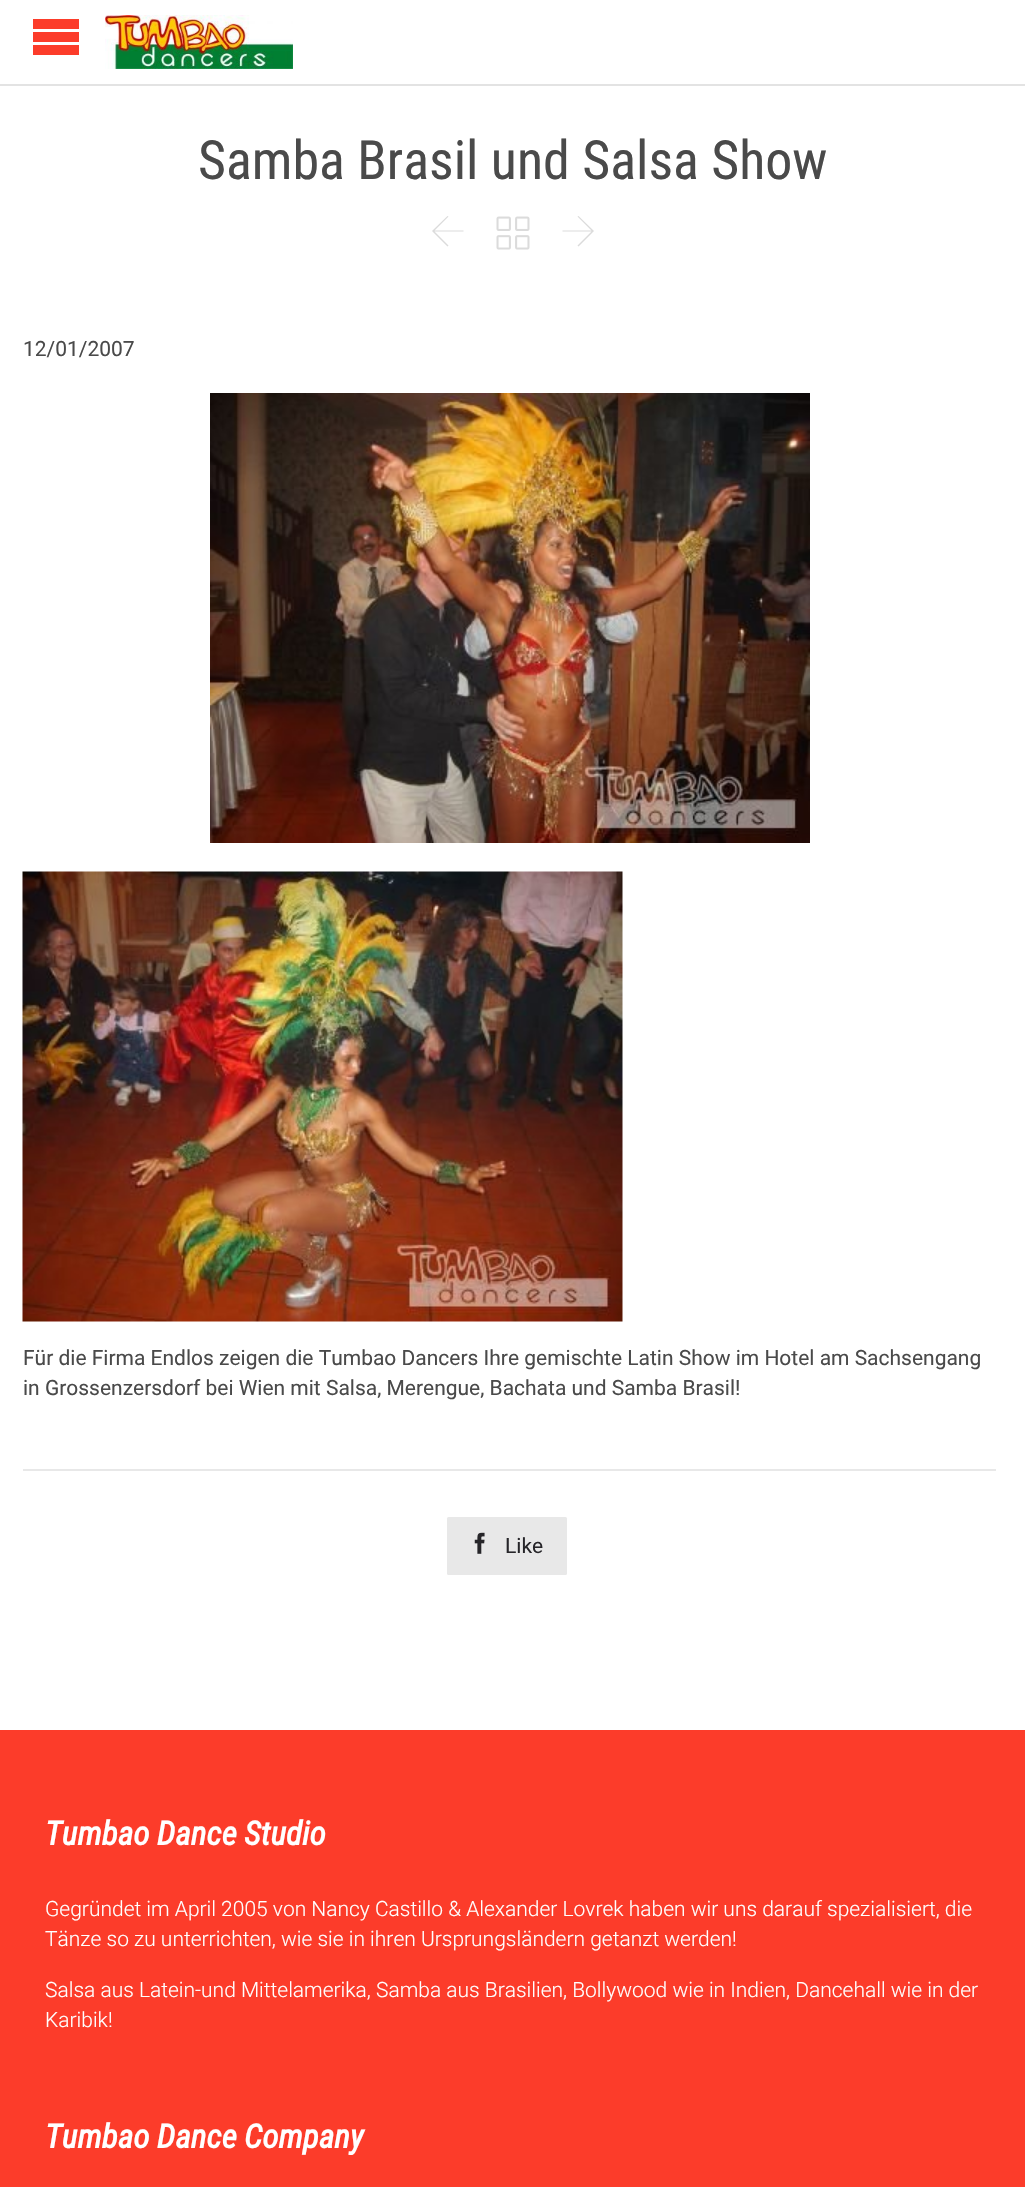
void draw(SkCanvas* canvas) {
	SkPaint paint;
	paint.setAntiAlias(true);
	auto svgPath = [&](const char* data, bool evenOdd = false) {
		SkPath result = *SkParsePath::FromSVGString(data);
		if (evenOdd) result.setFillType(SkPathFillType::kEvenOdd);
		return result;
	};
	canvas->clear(0xffffffff);
	paint.setColor(0xfffc3c2a);
	canvas->drawPath(svgPath("M33 19H79V29H33ZM33 32H79V42H33ZM33 45H79V55H33Z"), paint);
	paint.setColor(0xffe3e3e3);
	canvas->drawRect(SkRect::MakeXYWH(0, 84, 1025, 2), paint);
	canvas->drawImageRect(SkImages::DeferredFromEncodedData(SkData::MakeFromFileName("img1.png")), SkRect::MakeXYWH(105, 15, 188, 54), SkSamplingOptions());
	SkFont f1(fontMgr->matchFamilyStyle("Roboto Condensed", SkFontStyle::Normal()), 54);
	f1.setSubpixel(true);
	paint.setColor(0xff4a4a4a);
	canvas->drawString("Samba Brasil und Salsa Show", 198, 179, f1, paint);
	paint.setColor(0xffdbdbdb);
	canvas->drawPath(svgPath("M433 230L447.5 216L448.5 216.5L434.5 230.5H463.5V231.5H434.5L448.5 245.5L447.5 246.5L432 231Z"), paint);
	canvas->drawImageRect(SkImages::DeferredFromEncodedData(SkData::MakeFromFileName("img2.png")), SkRect::MakeXYWH(496, 216, 34, 34), SkSamplingOptions());
	canvas->drawPath(svgPath("M593 232L578.5 246.5L577.5 245.5L591.5 231.5H562.5V230.5H591.5L577.5 216.5L578.5 216L594 231Z"), paint);
	SkFont f2(fontMgr->matchFamilyStyle("Roboto", SkFontStyle::Normal()), 21);
	f2.setSubpixel(true);
	paint.setColor(0xff4a4a4a);
	canvas->drawString("12/01/2007", 23, 356, f2, paint);
	canvas->drawImageRect(SkImages::DeferredFromEncodedData(SkData::MakeFromFileName("img3.png")), SkRect::MakeXYWH(210, 393, 600, 450), SkSamplingOptions());
	canvas->drawImageRect(SkImages::DeferredFromEncodedData(SkData::MakeFromFileName("img4.png")), SkRect::MakeXYWH(22, 871, 601, 451), SkSamplingOptions());
	canvas->drawString("Für die Firma Endlos zeigen die Tumbao Dancers Ihre gemischte Latin Show im Hotel am Sachsengang", 23, 1365, f2, paint);
	canvas->drawString("in Grossenzersdorf bei Wien mit Salsa, Merengue, Bachata und Samba Brasil!", 23, 1395, f2, paint);
	paint.setColor(0xffe8e8e8);
	canvas->drawRect(SkRect::MakeXYWH(23, 1469, 973, 2), paint);
	canvas->drawRoundRect(SkRect::MakeXYWH(447, 1517, 120, 58), 1.5, 1.5, paint);
	canvas->drawImageRect(SkImages::DeferredFromEncodedData(SkData::MakeFromFileName("img5.png")), SkRect::MakeXYWH(474, 1532, 11, 22), SkSamplingOptions());
	paint.setColor(0xff262529);
	canvas->drawString("Like", 505, 1553, f2, paint);
	paint.setColor(0xfffc3c2a);
	canvas->drawRect(SkRect::MakeXYWH(0, 1730, 1025, 457), paint);
	SkFont f3(fontMgr->matchFamilyStyle("Roboto Condensed", SkFontStyle::BoldItalic()), 33);
	f3.setSubpixel(true);
	paint.setColor(0xffffffff);
	canvas->drawString("Tumbao Dance Studio", 45, 1845, f3, paint);
	SkFont f4(fontMgr->matchFamilyStyle("Roboto", SkFontStyle(300, SkFontStyle::kNormal_Width, SkFontStyle::kUpright_Slant)), 21);
	f4.setSubpixel(true);
	canvas->drawString("Gegründet im April 2005 von Nancy Castillo & Alexander Lovrek haben wir uns darauf spezialisiert, die", 45, 1916, f4, paint);
	canvas->drawString("Tänze so zu unterrichten, wie sie in ihren Ursprungsländern getanzt werden!", 45, 1946, f4, paint);
	canvas->drawString("Salsa aus Latein-und Mittelamerika, Samba aus Brasilien, Bollywood wie in Indien, Dancehall wie in der", 45, 1997, f4, paint);
	canvas->drawString("Karibik!", 45, 2027, f4, paint);
	canvas->drawString("Tumbao Dance Company", 45, 2148, f3, paint);
}
